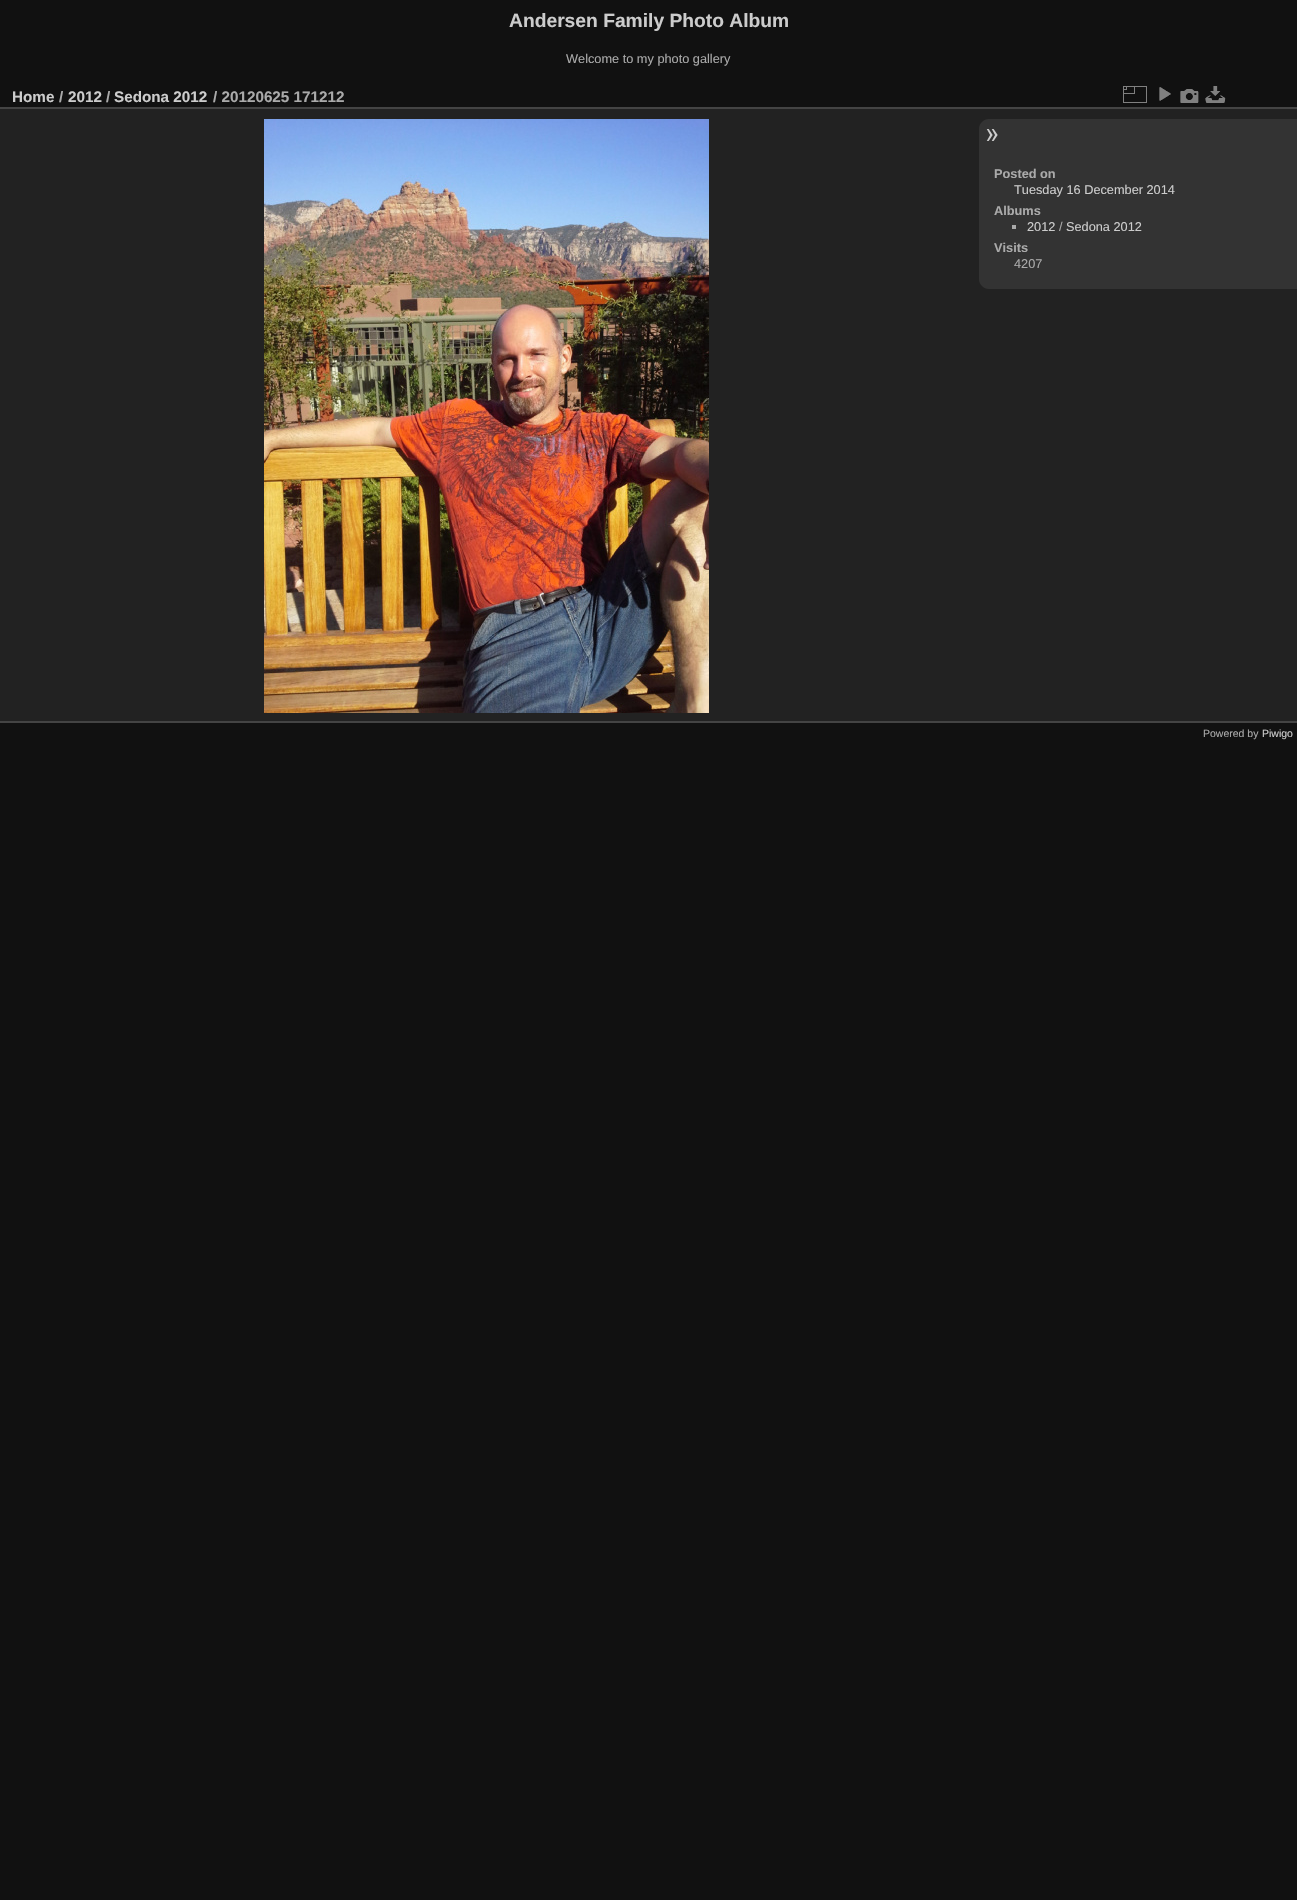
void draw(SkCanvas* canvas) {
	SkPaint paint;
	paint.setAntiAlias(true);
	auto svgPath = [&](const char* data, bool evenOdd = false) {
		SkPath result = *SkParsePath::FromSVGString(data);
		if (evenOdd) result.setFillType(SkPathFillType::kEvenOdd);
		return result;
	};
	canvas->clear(0xff111111);
	SkFont f1(fontMgr->matchFamilyStyle("Liberation Sans", SkFontStyle::Bold()), 19.25);
	f1.setSubpixel(true);
	paint.setColor(0xffcccccc);
	canvas->drawString("Andersen Family Photo Album", 509, 27, f1, paint);
	SkFont f2(fontMgr->matchFamilyStyle("Liberation Sans", SkFontStyle::Normal()), 12.75);
	f2.setSubpixel(true);
	paint.setColor(0xffaaaaaa);
	canvas->drawString("Welcome to my photo gallery", 566, 63, f2, paint);
	paint.setColor(0xff222222);
	canvas->drawRect(SkRect::MakeXYWH(0, 109, 1297, 612), paint);
	paint.setColor(0xff444444);
	canvas->drawRect(SkRect::MakeXYWH(0, 721, 1297, 2), paint);
	canvas->drawRect(SkRect::MakeXYWH(0, 107, 1297, 2), paint);
	SkFont f3(fontMgr->matchFamilyStyle("Liberation Sans", SkFontStyle::Bold()), 15.25);
	f3.setSubpixel(true);
	paint.setColor(0xffcccccc);
	canvas->drawString("Home", 12, 102, f3, paint);
	paint.setColor(0xffaaaaaa);
	canvas->drawString("/", 59, 102, f3, paint);
	paint.setColor(0xffcccccc);
	canvas->drawString("2012", 68, 102, f3, paint);
	paint.setColor(0xffaaaaaa);
	canvas->drawString("/", 106, 102, f3, paint);
	paint.setColor(0xffcccccc);
	canvas->drawString("Sedona 2012", 114, 102, f3, paint);
	paint.setColor(0xffaaaaaa);
	canvas->drawString("/ 20120625 171212", 213, 102, f3, paint);
	canvas->drawImageRect(SkImages::DeferredFromEncodedData(SkData::MakeFromFileName("img1.png")), SkRect::MakeXYWH(1123, 86, 24, 17), SkSamplingOptions());
	canvas->drawImageRect(SkImages::DeferredFromEncodedData(SkData::MakeFromFileName("img2.png")), SkRect::MakeXYWH(1159, 87, 12, 14), SkSamplingOptions());
	canvas->drawImageRect(SkImages::DeferredFromEncodedData(SkData::MakeFromFileName("img3.png")), SkRect::MakeXYWH(1180, 89, 19, 14), SkSamplingOptions());
	canvas->drawImageRect(SkImages::DeferredFromEncodedData(SkData::MakeFromFileName("img4.png")), SkRect::MakeXYWH(1205, 86, 21, 17), SkSamplingOptions());
	canvas->drawImageRect(SkImages::DeferredFromEncodedData(SkData::MakeFromFileName("img5.png")), SkRect::MakeXYWH(264, 119, 445, 594), SkSamplingOptions());
	paint.setColor(0xff333333);
	canvas->drawPath(svgPath("M989 119H1297V289H989C983.5 289 979 284.5 979 279V129C979 123.5 983.5 119 989 119Z"), paint);
	canvas->drawImageRect(SkImages::DeferredFromEncodedData(SkData::MakeFromFileName("img6.png")), SkRect::MakeXYWH(986, 129, 12, 12), SkSamplingOptions());
	SkFont f4(fontMgr->matchFamilyStyle("Liberation Sans", SkFontStyle::Bold()), 12.75);
	f4.setSubpixel(true);
	paint.setColor(0xffaaaaaa);
	canvas->drawString("Posted on", 994, 178, f4, paint);
	paint.setColor(0xffcccccc);
	canvas->drawString("Tuesday 16 December 2014", 1014, 194, f2, paint);
	paint.setColor(0xffaaaaaa);
	canvas->drawString("Albums", 994, 215, f4, paint);
	canvas->drawRect(SkRect::MakeXYWH(1012, 225, 4, 4), paint);
	paint.setColor(0xffcccccc);
	canvas->drawString("2012", 1027, 231, f2, paint);
	paint.setColor(0xffaaaaaa);
	canvas->drawString("/", 1059, 231, f2, paint);
	paint.setColor(0xffcccccc);
	canvas->drawString("Sedona 2012", 1066, 231, f2, paint);
	paint.setColor(0xffaaaaaa);
	canvas->drawString("Visits", 994, 252, f4, paint);
	canvas->drawString("4207", 1014, 268, f2, paint);
	SkFont f5(fontMgr->matchFamilyStyle("Liberation Sans", SkFontStyle::Normal()), 10.5);
	f5.setSubpixel(true);
	canvas->drawString("Powered by", 1203, 737, f5, paint);
	paint.setColor(0xffcccccc);
	canvas->drawString("Piwigo", 1262, 737, f5, paint);
}
